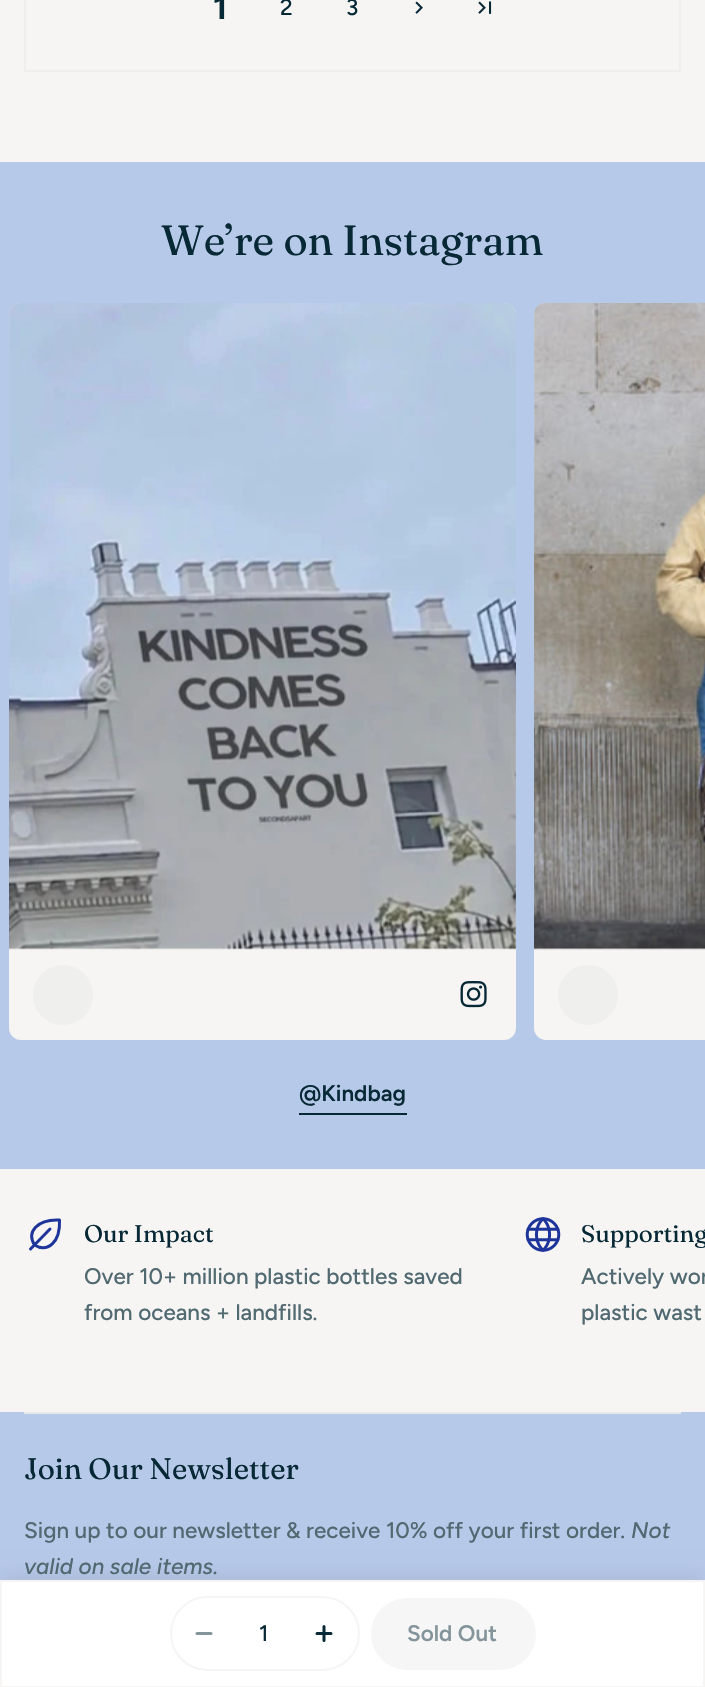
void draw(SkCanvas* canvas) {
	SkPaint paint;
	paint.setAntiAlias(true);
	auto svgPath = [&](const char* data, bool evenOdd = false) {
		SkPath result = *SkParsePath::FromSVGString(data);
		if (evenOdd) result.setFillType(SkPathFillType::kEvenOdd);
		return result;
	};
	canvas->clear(0xfff6f5f3);
	paint.setStroke(true);
	paint.setStrokeWidth(2);
	paint.setColor(0xffeeeeee);
	canvas->drawRect(SkRect::MakeXYWH(25, -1, 655, 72), paint);
	SkFont f1(fontMgr->matchFamilyStyle("Figtree", SkFontStyle::Bold()), 34);
	f1.setSubpixel(true);
	paint.setStroke(false);
	paint.setColor(0xff072835);
	canvas->drawString("1", 213, 19, f1, paint);
	SkFont f2(fontMgr->matchFamilyStyle("Figtree", SkFontStyle(500, SkFontStyle::kNormal_Width, SkFontStyle::kUpright_Slant)), 22.5);
	f2.setSubpixel(true);
	canvas->drawString("2", 280, 15, f2, paint);
	canvas->drawString("3", 346, 15, f2, paint);
	canvas->drawImageRect(SkImages::DeferredFromEncodedData(SkData::MakeFromFileName("img1.png")), SkRect::MakeXYWH(415, 1, 8, 13), SkSamplingOptions());
	canvas->drawImageRect(SkImages::DeferredFromEncodedData(SkData::MakeFromFileName("img2.png")), SkRect::MakeXYWH(478, 1, 14, 13), SkSamplingOptions());
	paint.setColor(0xffb7c9e9);
	canvas->drawRect(SkRect::MakeXYWH(0, 162, 705, 1007), paint);
	SkFont f3(fontMgr->matchFamilyStyle("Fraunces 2", SkFontStyle::Normal()), 42);
	f3.setSubpixel(true);
	paint.setColor(0xff072835);
	canvas->drawString("We’re on Instagram", 161, 255, f3, paint);
	paint.setColor(0xfff6f5f3);
	canvas->drawRoundRect(SkRect::MakeXYWH(9, 303, 507, 737), 12, 12, paint);
	canvas->drawImageRect(SkImages::DeferredFromEncodedData(SkData::MakeFromFileName("img3.png")), SkRect::MakeXYWH(9, 303, 507, 647), SkSamplingOptions());
	paint.setColor(0xffefefed);
	canvas->drawCircle(63, 995, 30, paint);
	canvas->drawImageRect(SkImages::DeferredFromEncodedData(SkData::MakeFromFileName("img4.png")), SkRect::MakeXYWH(460, 981, 27, 27), SkSamplingOptions());
	paint.setColor(0xfff6f5f3);
	canvas->drawPath(svgPath("M546 303H705V1040H546C539.5 1040 534 1034.5 534 1028V315C534 308.5 539.5 303 546 303Z"), paint);
	canvas->drawImageRect(SkImages::DeferredFromEncodedData(SkData::MakeFromFileName("img5.png")), SkRect::MakeXYWH(534, 303, 171, 647), SkSamplingOptions());
	paint.setColor(0xffefefed);
	canvas->drawCircle(588, 995, 30, paint);
	SkFont f4(fontMgr->matchFamilyStyle("Figtree", SkFontStyle(600, SkFontStyle::kNormal_Width, SkFontStyle::kUpright_Slant)), 22.5);
	f4.setSubpixel(true);
	paint.setColor(0xff072835);
	canvas->drawString("@Kindbag", 299, 1101, f4, paint);
	canvas->drawRect(SkRect::MakeXYWH(299, 1113, 108, 2), paint);
	paint.setColor(0xffb7c9e9);
	canvas->drawRect(SkRect::MakeXYWH(0, 1412, 705, 168), paint);
	paint.setColor(0x0d000000);
	paint.setMaskFilter(SkMaskFilter::MakeBlur(kNormal_SkBlurStyle, 7.5));
	canvas->drawRect(SkRect::MakeXYWH(0, 1571, 705, 108), paint);
	paint.setMaskFilter(nullptr);
	paint.setColor(0xffffffff);
	canvas->drawRect(SkRect::MakeXYWH(1, 1581, 703, 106), paint);
	paint.setStroke(true);
	paint.setColor(0xfff6f5f3);
	canvas->drawRect(SkRect::MakeXYWH(1, 1581, 703, 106), paint);
	canvas->drawRoundRect(SkRect::MakeXYWH(171, 1597, 188, 73), 36.5, 36.5, paint);
	paint.setStrokeWidth(3);
	paint.setStrokeCap(SkPaint::kRound_Cap);
	paint.setStrokeJoin(SkPaint::kRound_Join);
	paint.setColor(0xff83949a);
	canvas->drawPath(svgPath("M197 1633.5H211"), paint);
	paint.setStroke(false);
	paint.setColor(0xff072835);
	canvas->drawString("1", 259, 1641, f2, paint);
	paint.setStroke(true);
	canvas->drawPath(svgPath("M317 1633.5H331M324 1626.5V1640.5"), paint);
	paint.setStroke(false);
	paint.setColor(0xfff6f6f6);
	canvas->drawRoundRect(SkRect::MakeXYWH(371, 1598, 165, 72), 36, 36, paint);
	paint.setColor(0xff83949a);
	canvas->drawString("Sold Out", 407, 1641, f4, paint);
	paint.setStroke(true);
	paint.setColor(0xff1d349a);
	canvas->drawPath(svgPath("M34.5 1245C26.5 1232 37 1219 59.5 1220C60.5 1242.5 47.5 1253 34.5 1245ZM50 1229L30.5 1249"), paint);
	SkFont f5(fontMgr->matchFamilyStyle("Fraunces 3", SkFontStyle::Normal()), 24);
	f5.setSubpixel(true);
	paint.setStroke(false);
	paint.setColor(0xff072835);
	canvas->drawString("Our Impact", 84, 1242, f5, paint);
	paint.setColor(0xff516971);
	canvas->drawString("Over 10+ million plastic bottles saved", 84, 1284, f2, paint);
	canvas->drawString("from oceans + landfills.", 84, 1320, f2, paint);
	canvas->drawImageRect(SkImages::DeferredFromEncodedData(SkData::MakeFromFileName("img6.png")), SkRect::MakeXYWH(525, 1217, 36, 35), SkSamplingOptions());
	paint.setColor(0xff072835);
	canvas->drawString("Supporting", 581, 1242, f5, paint);
	paint.setColor(0xff516971);
	canvas->drawString("Actively wor", 581, 1284, f2, paint);
	canvas->drawString("plastic wast", 581, 1320, f2, paint);
	paint.setColor(0xffe6e9eb);
	canvas->drawRect(SkRect::MakeXYWH(24, 1412, 657, 2), paint);
	SkFont f6(fontMgr->matchFamilyStyle("Fraunces", SkFontStyle::Normal()), 29.5);
	f6.setSubpixel(true);
	paint.setColor(0xff072835);
	canvas->drawString("Join Our Newsletter", 24, 1479, f6, paint);
	paint.setColor(0xff516971);
	canvas->drawString("Sign up to our newsletter & receive 10% off your first order.", 24, 1538, f2, paint);
	SkFont f7(fontMgr->matchFamilyStyle("Figtree", SkFontStyle(500, SkFontStyle::kNormal_Width, SkFontStyle::kItalic_Slant)), 22.5);
	f7.setSubpixel(true);
	canvas->drawString("Not", 631, 1538, f7, paint);
	canvas->drawString("valid on sale items.", 24, 1574, f7, paint);
}
